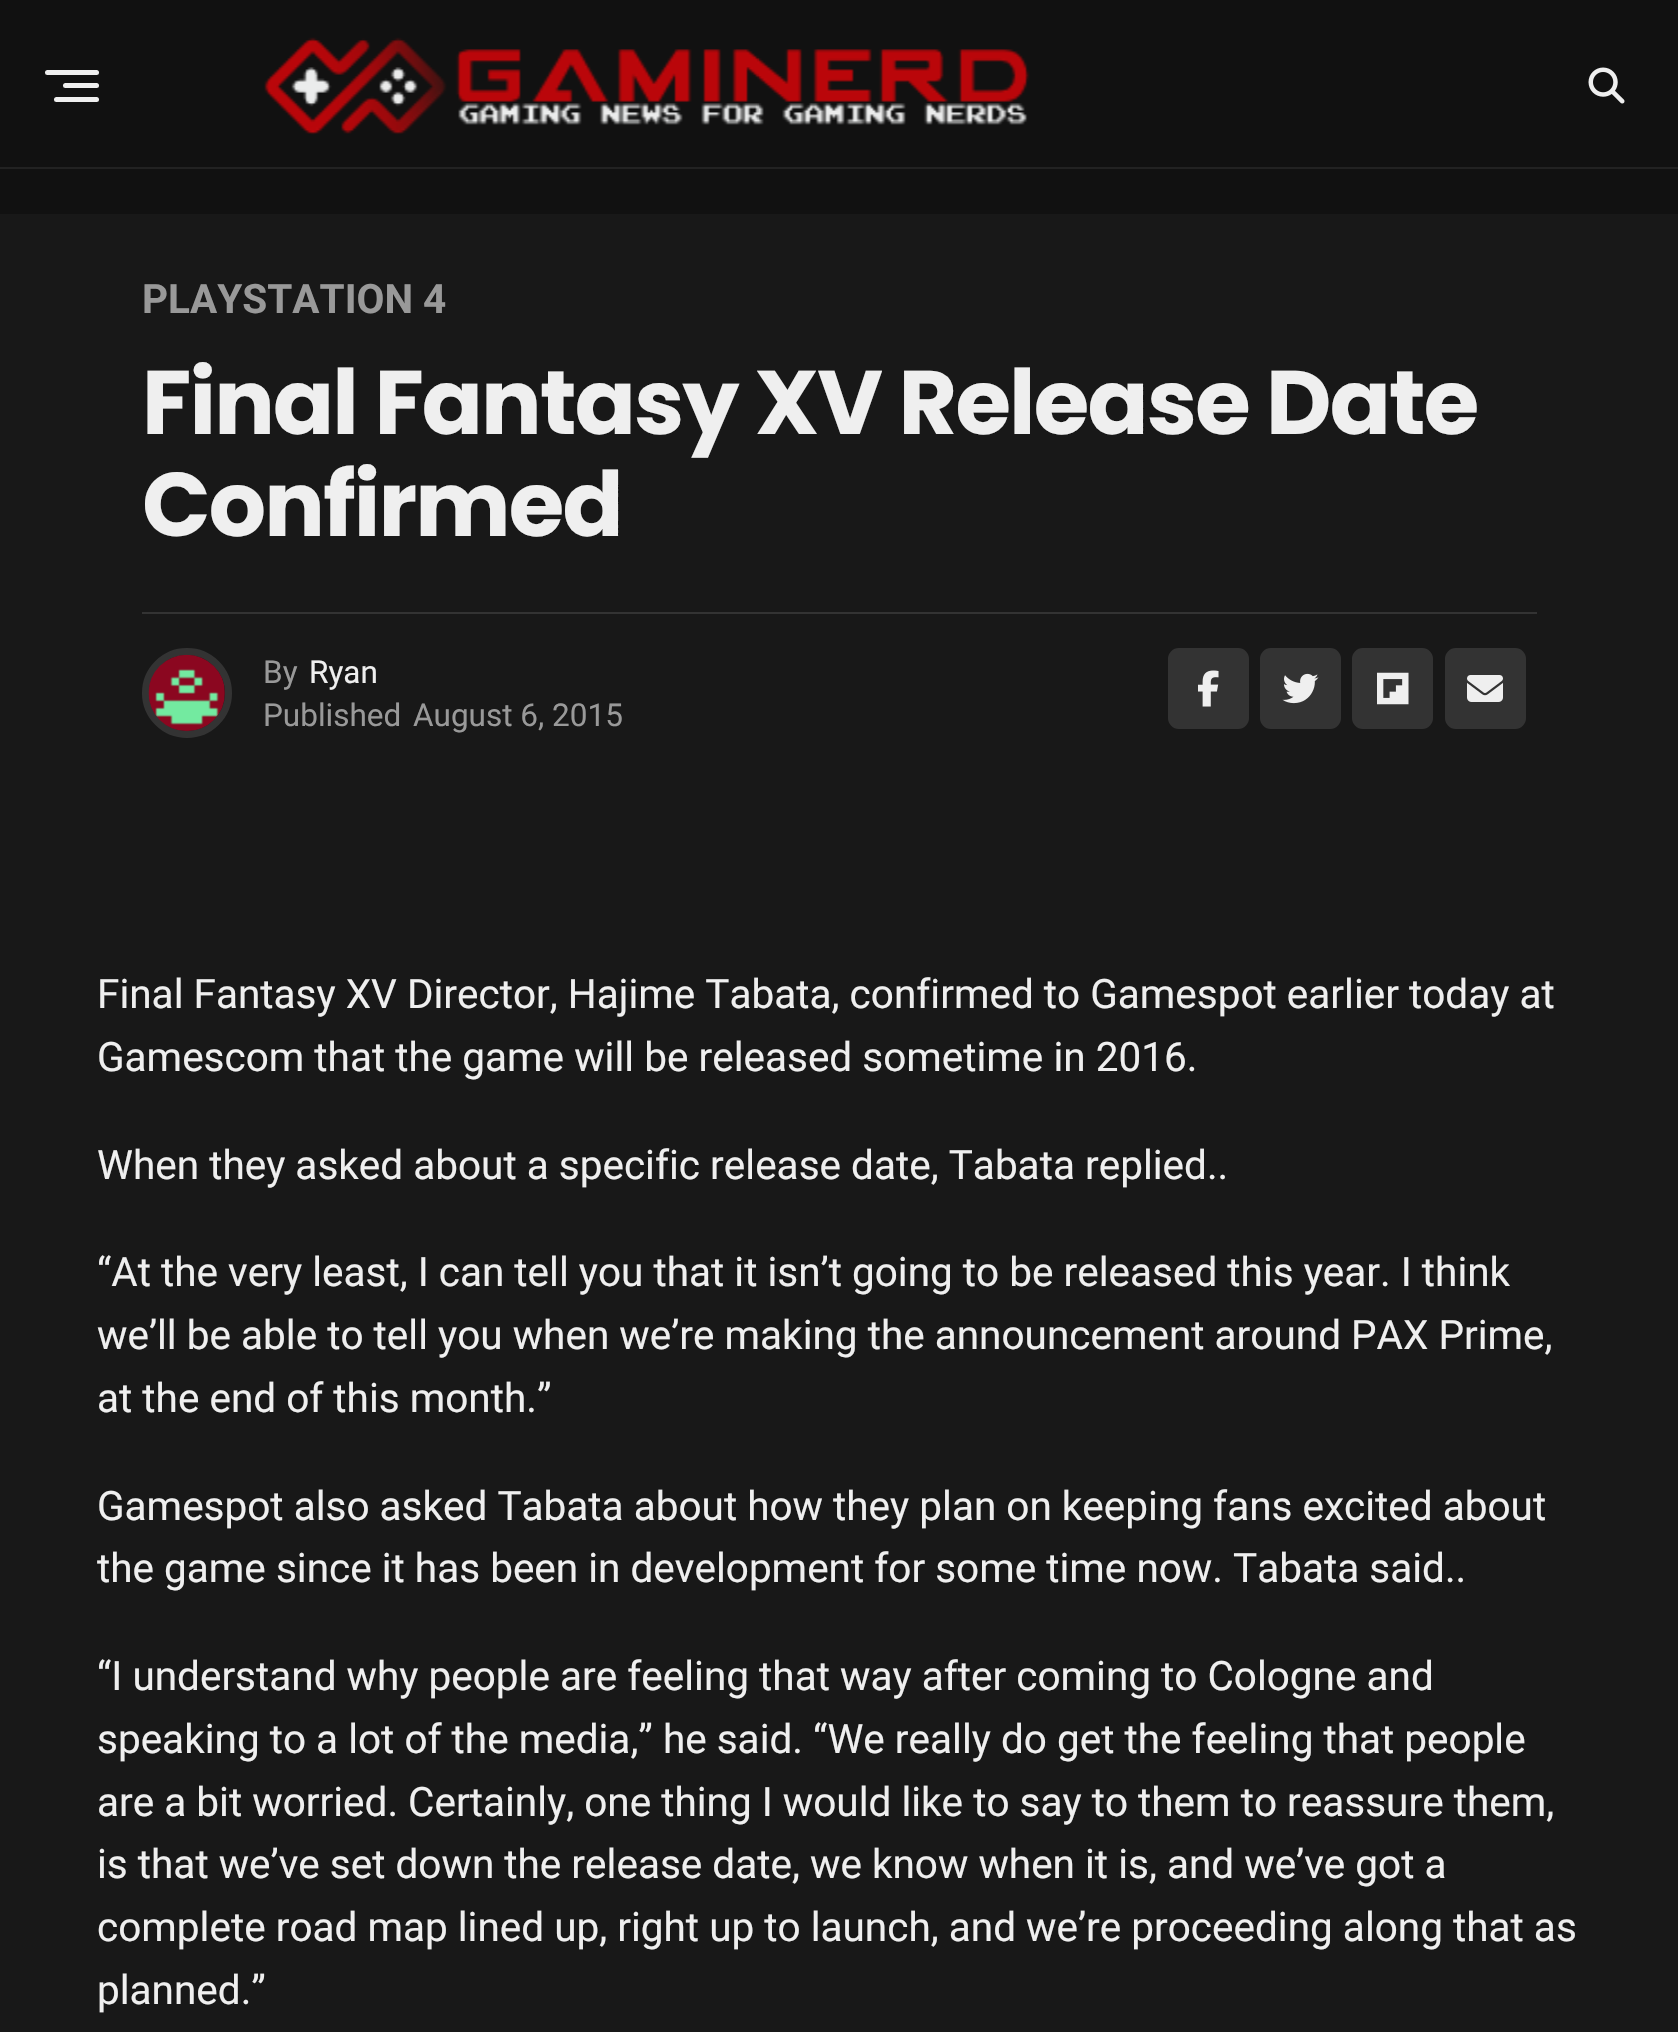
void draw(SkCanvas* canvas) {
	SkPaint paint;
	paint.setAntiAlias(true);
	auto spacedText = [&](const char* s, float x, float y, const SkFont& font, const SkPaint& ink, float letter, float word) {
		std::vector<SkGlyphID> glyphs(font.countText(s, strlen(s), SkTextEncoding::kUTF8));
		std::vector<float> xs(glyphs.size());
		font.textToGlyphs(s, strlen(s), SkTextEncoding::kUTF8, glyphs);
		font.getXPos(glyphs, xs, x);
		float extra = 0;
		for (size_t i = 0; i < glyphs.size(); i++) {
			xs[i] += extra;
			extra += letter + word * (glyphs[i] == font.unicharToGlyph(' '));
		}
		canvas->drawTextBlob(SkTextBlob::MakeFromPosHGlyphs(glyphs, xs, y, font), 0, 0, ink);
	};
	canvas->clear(0xff111111);
	paint.setColor(0xff222222);
	canvas->drawRect(SkRect::MakeXYWH(0, 167, 1678, 2), paint);
	paint.setColor(0xffefefef);
	canvas->drawRoundRect(SkRect::MakeXYWH(45, 70, 54, 5), 2.5, 2.5, paint);
	canvas->drawRoundRect(SkRect::MakeXYWH(63, 83, 36, 5), 2.5, 2.5, paint);
	canvas->drawRoundRect(SkRect::MakeXYWH(54, 97, 45, 5), 2.5, 2.5, paint);
	canvas->drawImageRect(SkImages::DeferredFromEncodedData(SkData::MakeFromFileName("img1.png")), SkRect::MakeXYWH(264, 37, 766, 98), SkSamplingOptions());
	canvas->drawImageRect(SkImages::DeferredFromEncodedData(SkData::MakeFromFileName("img2.png")), SkRect::MakeXYWH(1588, 67, 37, 37), SkSamplingOptions());
	paint.setColor(0xff181818);
	canvas->drawRect(SkRect::MakeXYWH(0, 214, 1678, 1818), paint);
	SkFont f1(fontMgr->matchFamilyStyle("Roboto", SkFontStyle::Bold()), 40.5);
	f1.setSubpixel(true);
	paint.setColor(0xff999999);
	canvas->drawString("PLAYSTATION 4", 142, 313, f1, paint);
	SkFont f2(fontMgr->matchFamilyStyle("Poppins", SkFontStyle::Bold()), 90);
	f2.setSubpixel(true);
	paint.setColor(0xffefefef);
	spacedText("Final Fantasy XV Release Date", 142, 434, f2, paint, -1.8, 0);
	spacedText("Confirmed", 142, 536, f2, paint, -1.8, 0);
	paint.setColor(0xff333333);
	canvas->drawRect(SkRect::MakeXYWH(142, 612, 1395, 2), paint);
	paint.setStroke(true);
	paint.setStrokeWidth(7);
	canvas->drawCircle(187, 693, 41.5, paint);
	canvas->drawImageRect(SkImages::DeferredFromEncodedData(SkData::MakeFromFileName("img3.png")), SkRect::MakeXYWH(148, 654, 77, 78), SkSamplingOptions());
	SkFont f3(fontMgr->matchFamilyStyle("Roboto", SkFontStyle::Normal()), 31.5);
	f3.setSubpixel(true);
	paint.setStroke(false);
	paint.setColor(0xff999999);
	canvas->drawString("By", 263, 683, f3, paint);
	paint.setColor(0xffefefef);
	canvas->drawString("Ryan", 309, 683, f3, paint);
	paint.setColor(0xff999999);
	canvas->drawString("Published", 263, 726, f3, paint);
	canvas->drawString("August 6, 2015", 413, 726, f3, paint);
	paint.setColor(0xff333333);
	canvas->drawRoundRect(SkRect::MakeXYWH(1169, 649, 79, 79), 10, 10, paint);
	paint.setStroke(true);
	paint.setStrokeWidth(2);
	canvas->drawRoundRect(SkRect::MakeXYWH(1169, 649, 79, 79), 10, 10, paint);
	canvas->drawImageRect(SkImages::DeferredFromEncodedData(SkData::MakeFromFileName("img4.png")), SkRect::MakeXYWH(1198, 670, 21, 37), SkSamplingOptions());
	paint.setStroke(false);
	canvas->drawRoundRect(SkRect::MakeXYWH(1261, 649, 79, 79), 10, 10, paint);
	paint.setStroke(true);
	canvas->drawRoundRect(SkRect::MakeXYWH(1261, 649, 79, 79), 10, 10, paint);
	canvas->drawImageRect(SkImages::DeferredFromEncodedData(SkData::MakeFromFileName("img5.png")), SkRect::MakeXYWH(1282, 673, 37, 31), SkSamplingOptions());
	paint.setStroke(false);
	canvas->drawRoundRect(SkRect::MakeXYWH(1353, 649, 79, 79), 10, 10, paint);
	paint.setStroke(true);
	canvas->drawRoundRect(SkRect::MakeXYWH(1353, 649, 79, 79), 10, 10, paint);
	canvas->drawImageRect(SkImages::DeferredFromEncodedData(SkData::MakeFromFileName("img6.png")), SkRect::MakeXYWH(1377, 672, 32, 33), SkSamplingOptions());
	paint.setStroke(false);
	canvas->drawRoundRect(SkRect::MakeXYWH(1446, 649, 79, 79), 10, 10, paint);
	paint.setStroke(true);
	canvas->drawRoundRect(SkRect::MakeXYWH(1446, 649, 79, 79), 10, 10, paint);
	canvas->drawImageRect(SkImages::DeferredFromEncodedData(SkData::MakeFromFileName("img7.png")), SkRect::MakeXYWH(1467, 675, 36, 27), SkSamplingOptions());
	SkFont f4(fontMgr->matchFamilyStyle("Roboto", SkFontStyle::Normal()), 40.5);
	f4.setSubpixel(true);
	paint.setStroke(false);
	paint.setColor(0xffefefef);
	canvas->drawString("Final Fantasy XV Director, Hajime Tabata, confirmed to Gamespot earlier today at", 97, 1008, f4, paint);
	canvas->drawString("Gamescom that the game will be released sometime in 2016.", 97, 1071, f4, paint);
	canvas->drawString("When they asked about a specific release date, Tabata replied..", 97, 1179, f4, paint);
	canvas->drawString("“At the very least, I can tell you that it isn’t going to be released this year. I think", 97, 1286, f4, paint);
	canvas->drawString("we’ll be able to tell you when we’re making the announcement around PAX Prime,", 97, 1349, f4, paint);
	canvas->drawString("at the end of this month.”", 97, 1412, f4, paint);
	canvas->drawString("Gamespot also asked Tabata about how they plan on keeping fans excited about", 97, 1520, f4, paint);
	canvas->drawString("the game since it has been in development for some time now. Tabata said..", 97, 1582, f4, paint);
	canvas->drawString("“I understand why people are feeling that way after coming to Cologne and", 97, 1690, f4, paint);
	canvas->drawString("speaking to a lot of the media,” he said. “We really do get the feeling that people", 97, 1753, f4, paint);
	canvas->drawString("are a bit worried. Certainly, one thing I would like to say to them to reassure them,", 97, 1816, f4, paint);
	canvas->drawString("is that we’ve set down the release date, we know when it is, and we’ve got a", 97, 1878, f4, paint);
	canvas->drawString("complete road map lined up, right up to launch, and we’re proceeding along that as", 97, 1941, f4, paint);
	canvas->drawString("planned.”", 97, 2004, f4, paint);
}
